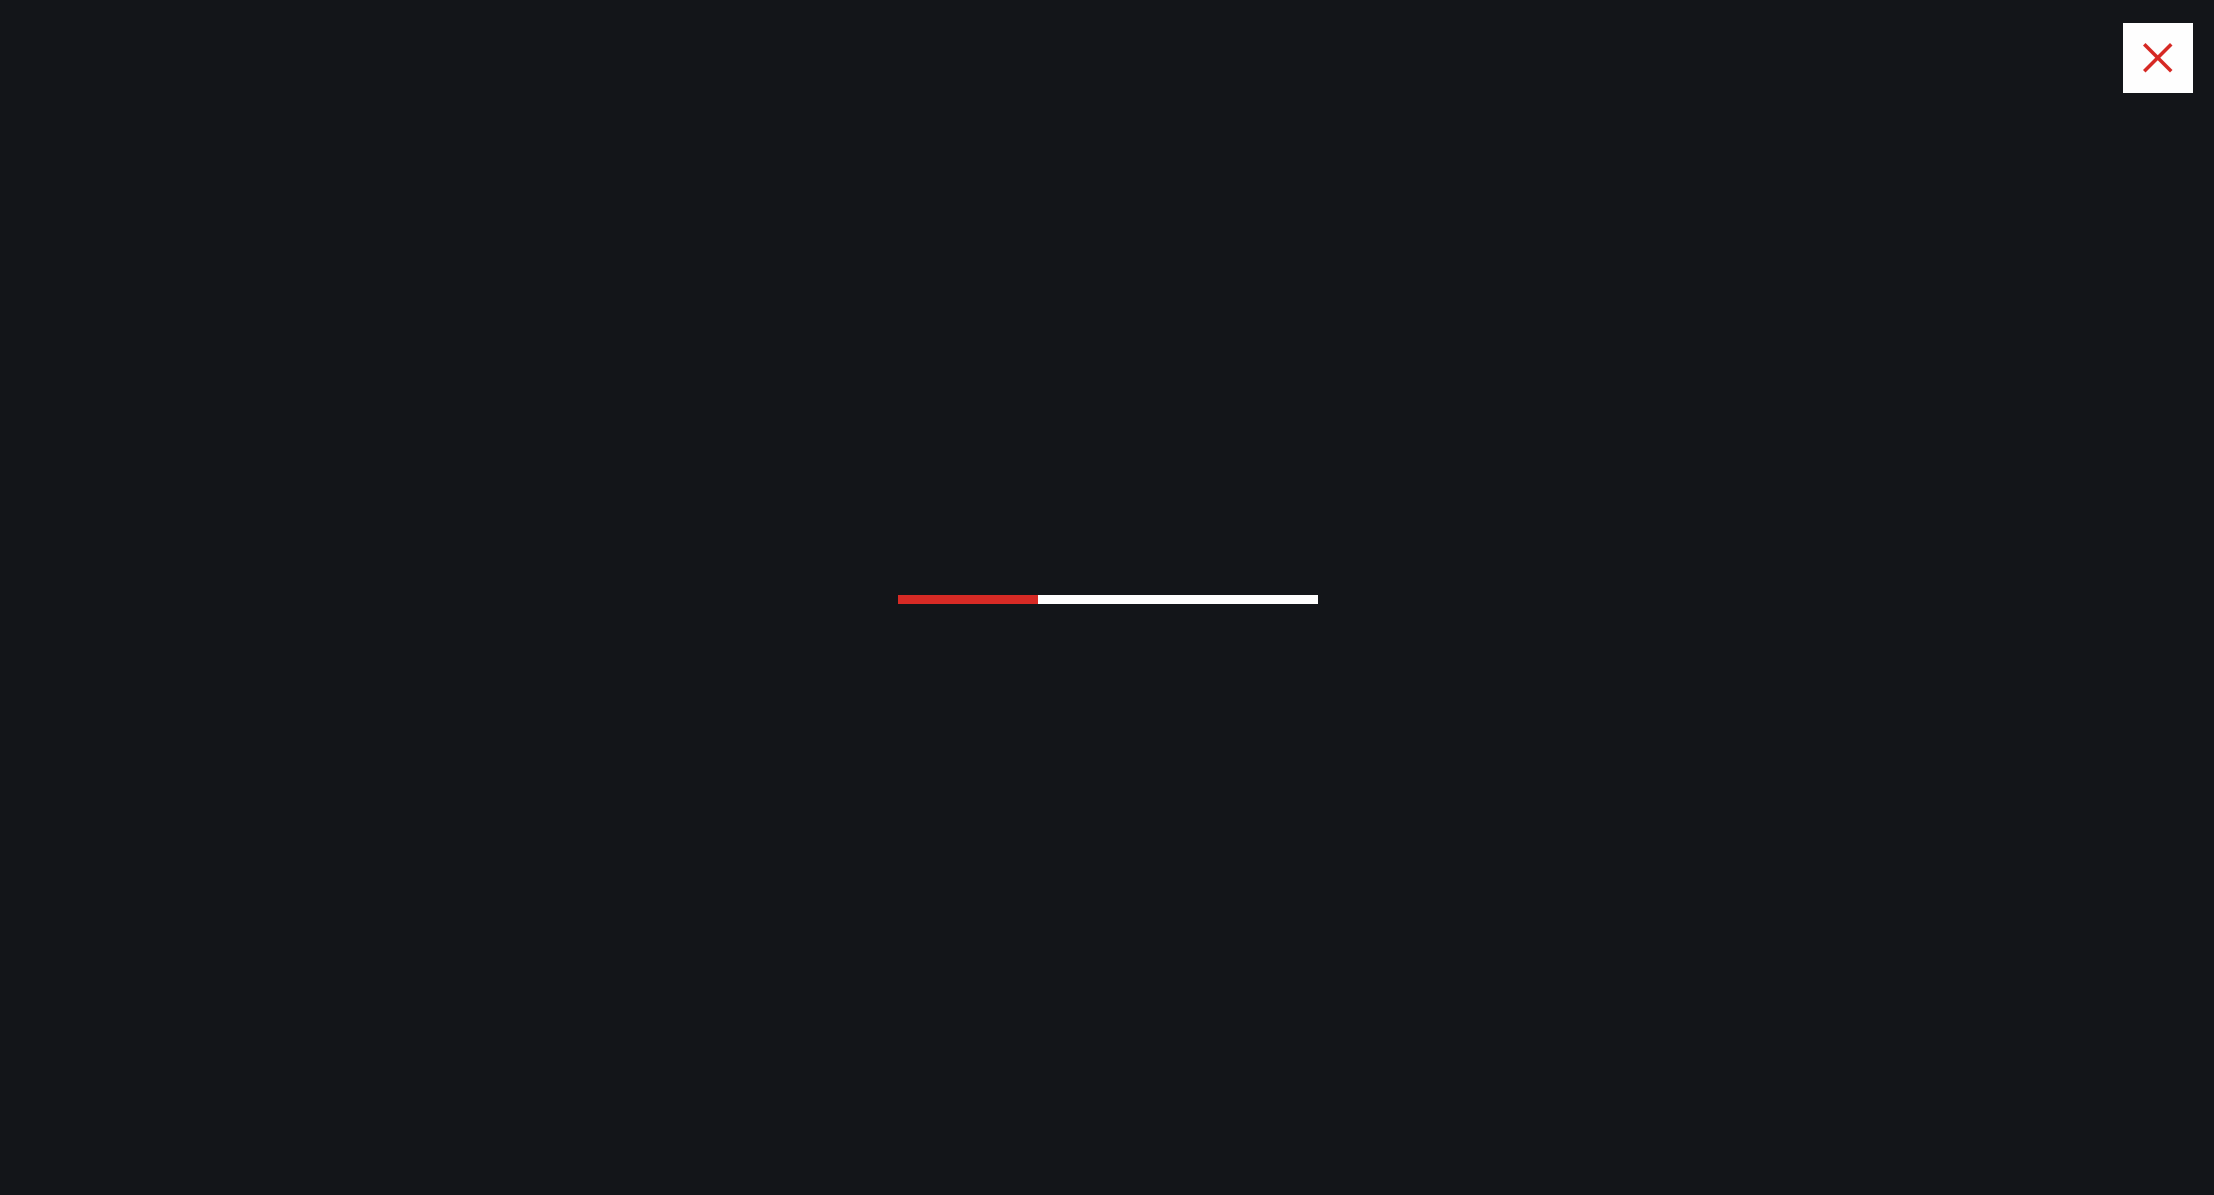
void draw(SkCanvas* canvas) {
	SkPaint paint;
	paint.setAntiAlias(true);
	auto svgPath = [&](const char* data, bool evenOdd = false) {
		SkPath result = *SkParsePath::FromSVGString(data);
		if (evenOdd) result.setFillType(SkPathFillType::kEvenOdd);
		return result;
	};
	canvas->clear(0xff131519);
	paint.setColor(0xfffefefe);
	canvas->drawRect(SkRect::MakeXYWH(2123, 23, 70, 70), paint);
	paint.setColor(0xffd62924);
	canvas->drawPath(svgPath("M2143 70L2170 43L2172.5 45.5L2145.5 72.5Z"), paint);
	canvas->drawPath(svgPath("M2170 72.5L2143 45.5L2145.5 43L2172.5 70Z"), paint);
	paint.setColor(0xfffefefe);
	canvas->drawRect(SkRect::MakeXYWH(1038, 595, 280, 9), paint);
	paint.setColor(0xffd72a25);
	canvas->drawRect(SkRect::MakeXYWH(898, 595, 140, 9), paint);
}
